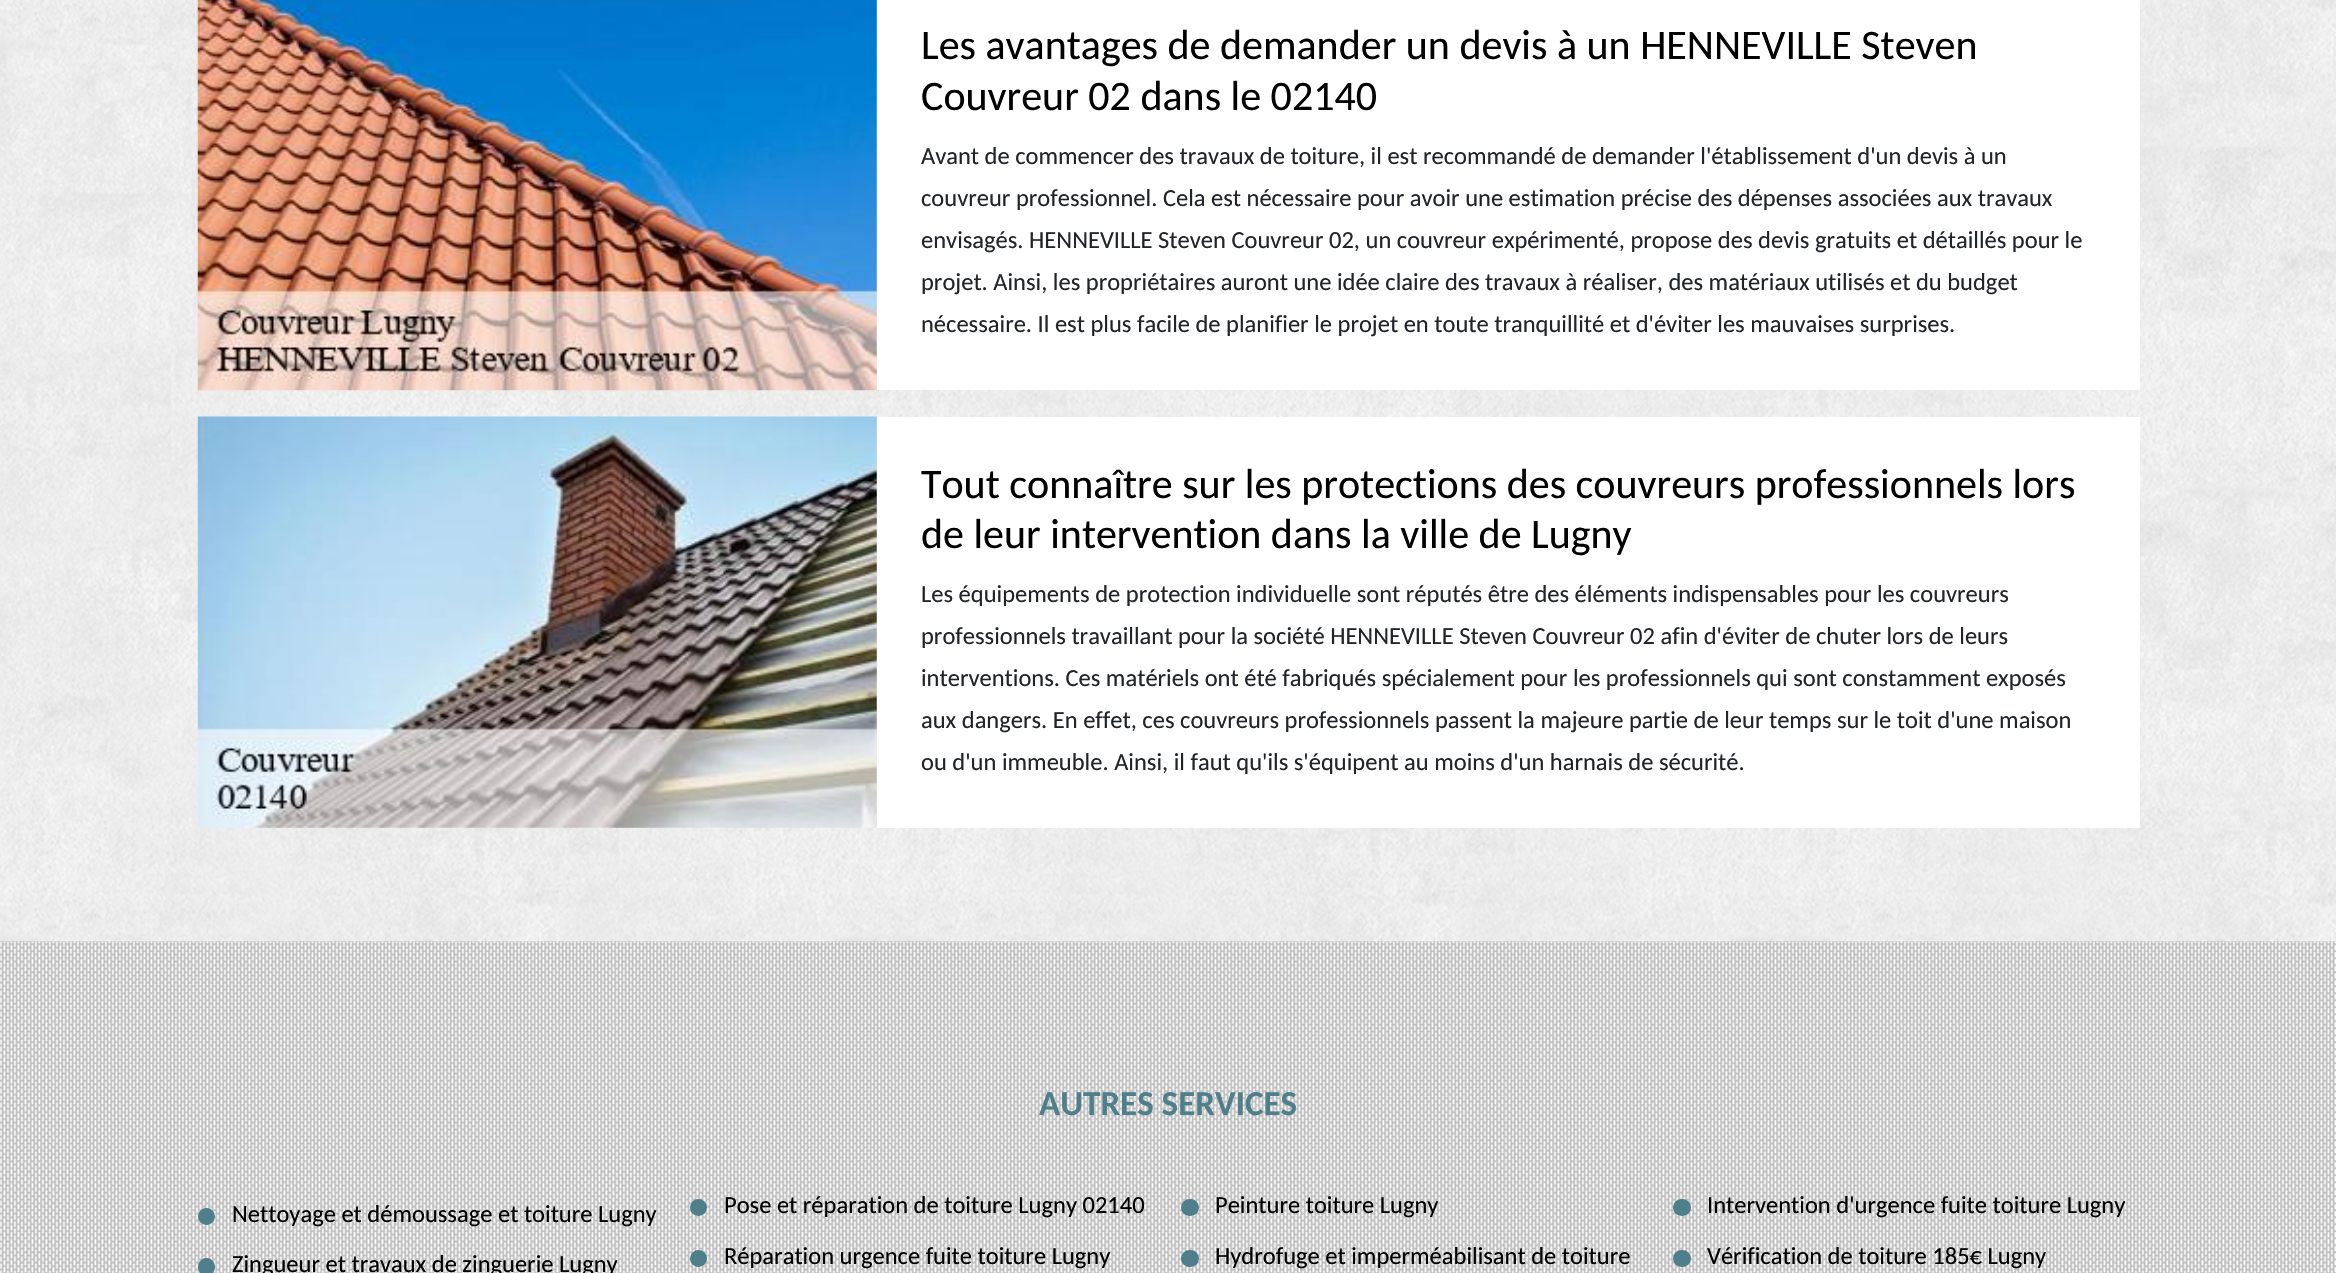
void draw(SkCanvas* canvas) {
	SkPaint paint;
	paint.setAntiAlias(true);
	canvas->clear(0xffffffff);
	canvas->drawImageRect(SkImages::DeferredFromEncodedData(SkData::MakeFromFileName("img1.png")), SkRect::MakeXYWH(0, 0, 2336, 942), SkSamplingOptions());
	canvas->drawImageRect(SkImages::DeferredFromEncodedData(SkData::MakeFromFileName("img2.png")), SkRect::MakeXYWH(197, 0, 680, 391), SkSamplingOptions());
	paint.setColor(0xffffffff);
	canvas->drawRect(SkRect::MakeXYWH(877, 0, 1263, 390), paint);
	SkFont f1(fontMgr->matchFamilyStyle("Carlito", SkFontStyle::Normal()), 42);
	f1.setSubpixel(true);
	paint.setColor(0xff000000);
	canvas->drawString("Les avantages de demander un devis à un HENNEVILLE Steven", 921, 59, f1, paint);
	canvas->drawString("Couvreur 02 dans le 02140", 921, 110, f1, paint);
	SkFont f2(fontMgr->matchFamilyStyle("Carlito", SkFontStyle::Normal()), 24.5);
	f2.setSubpixel(true);
	paint.setColor(0xff212529);
	canvas->drawString("Avant de commencer des travaux de toiture, il est recommandé de demander l'établissement d'un devis à un", 921, 164, f2, paint);
	canvas->drawString("couvreur professionnel. Cela est nécessaire pour avoir une estimation précise des dépenses associées aux travaux", 921, 206, f2, paint);
	canvas->drawString("envisagés. HENNEVILLE Steven Couvreur 02, un couvreur expérimenté, propose des devis gratuits et détaillés pour le", 921, 248, f2, paint);
	canvas->drawString("projet. Ainsi, les propriétaires auront une idée claire des travaux à réaliser, des matériaux utilisés et du budget", 921, 290, f2, paint);
	canvas->drawString("nécessaire. Il est plus facile de planifier le projet en toute tranquillité et d'éviter les mauvaises surprises.", 921, 332, f2, paint);
	canvas->drawImageRect(SkImages::DeferredFromEncodedData(SkData::MakeFromFileName("img3.png")), SkRect::MakeXYWH(197, 416, 680, 412), SkSamplingOptions());
	paint.setColor(0xffffffff);
	canvas->drawRect(SkRect::MakeXYWH(877, 417, 1263, 411), paint);
	paint.setColor(0xff000000);
	canvas->drawString("Tout connaître sur les protections des couvreurs professionnels lors", 921, 498, f1, paint);
	canvas->drawString("de leur intervention dans la ville de Lugny", 921, 548, f1, paint);
	paint.setColor(0xff212529);
	canvas->drawString("Les équipements de protection individuelle sont réputés être des éléments indispensables pour les couvreurs", 921, 602, f2, paint);
	canvas->drawString("professionnels travaillant pour la société HENNEVILLE Steven Couvreur 02 afin d'éviter de chuter lors de leurs", 921, 644, f2, paint);
	canvas->drawString("interventions. Ces matériels ont été fabriqués spécialement pour les professionnels qui sont constamment exposés", 921, 686, f2, paint);
	canvas->drawString("aux dangers. En effet, ces couvreurs professionnels passent la majeure partie de leur temps sur le toit d'une maison", 921, 728, f2, paint);
	canvas->drawString("ou d'un immeuble. Ainsi, il faut qu'ils s'équipent au moins d'un harnais de sécurité.", 921, 770, f2, paint);
	canvas->drawImageRect(SkImages::DeferredFromEncodedData(SkData::MakeFromFileName("img4.png")), SkRect::MakeXYWH(0, 941, 2336, 332), SkSamplingOptions());
	SkFont f3(fontMgr->matchFamilyStyle("Carlito", SkFontStyle::Bold()), 35);
	f3.setSubpixel(true);
	paint.setColor(0xff4e7f8b);
	canvas->drawString("AUTRES SERVICES", 1039, 1115, f3, paint);
	canvas->drawCircle(206.5, 1216.5, 8.5, paint);
	paint.setColor(0xff000000);
	canvas->drawString("Nettoyage et démoussage et toiture Lugny", 232, 1222, f2, paint);
	paint.setColor(0xff4e7f8b);
	canvas->drawCircle(698.5, 1207.5, 8.5, paint);
	paint.setColor(0xff000000);
	canvas->drawString("Pose et réparation de toiture Lugny 02140", 724, 1213, f2, paint);
	paint.setColor(0xff4e7f8b);
	canvas->drawRoundRect(SkRect::MakeXYWH(1181, 1199, 18, 17), 8.5, 8.5, paint);
	paint.setColor(0xff000000);
	canvas->drawString("Peinture toiture Lugny", 1215, 1213, f2, paint);
	paint.setColor(0xff4e7f8b);
	canvas->drawRoundRect(SkRect::MakeXYWH(1673, 1199, 18, 17), 8.5, 8.5, paint);
	paint.setColor(0xff000000);
	canvas->drawString("Intervention d'urgence fuite toiture Lugny", 1707, 1213, f2, paint);
	paint.setColor(0xff4e7f8b);
	canvas->drawRoundRect(SkRect::MakeXYWH(198, 1258, 17, 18), 8.5, 8.5, paint);
	paint.setColor(0xff000000);
	canvas->drawString("Zingueur et travaux de zinguerie Lugny", 232, 1272, f2, paint);
	paint.setColor(0xff4e7f8b);
	canvas->drawCircle(698.5, 1258.5, 8.5, paint);
	paint.setColor(0xff000000);
	canvas->drawString("Réparation urgence fuite toiture Lugny", 724, 1264, f2, paint);
	paint.setColor(0xff4e7f8b);
	canvas->drawRoundRect(SkRect::MakeXYWH(1181, 1250, 18, 17), 8.5, 8.5, paint);
	paint.setColor(0xff000000);
	canvas->drawString("Hydrofuge et imperméabilisant de toiture", 1215, 1264, f2, paint);
	paint.setColor(0xff4e7f8b);
	canvas->drawRoundRect(SkRect::MakeXYWH(1673, 1250, 18, 17), 8.5, 8.5, paint);
	paint.setColor(0xff000000);
	canvas->drawString("Vérification de toiture 185€ Lugny", 1707, 1264, f2, paint);
}
